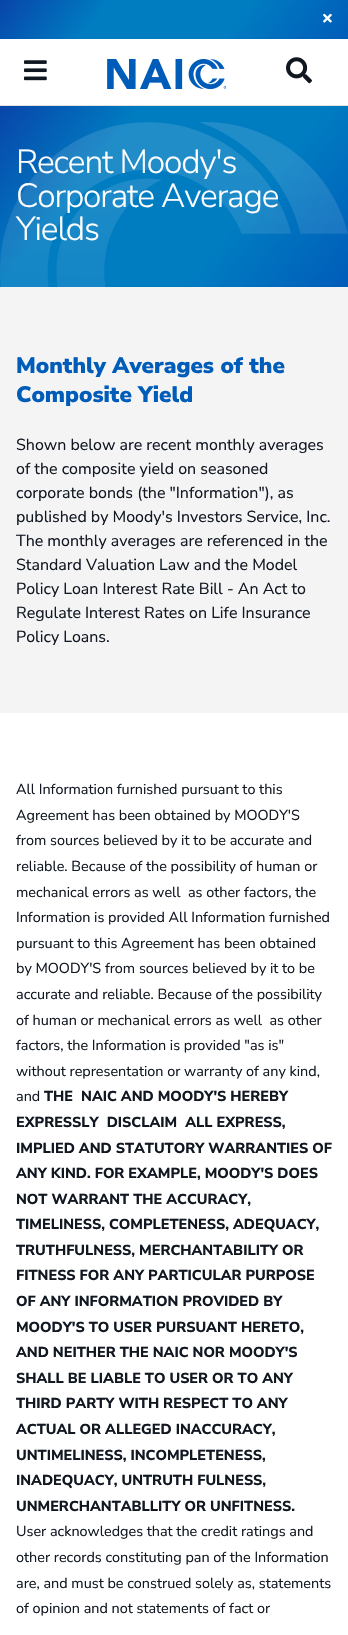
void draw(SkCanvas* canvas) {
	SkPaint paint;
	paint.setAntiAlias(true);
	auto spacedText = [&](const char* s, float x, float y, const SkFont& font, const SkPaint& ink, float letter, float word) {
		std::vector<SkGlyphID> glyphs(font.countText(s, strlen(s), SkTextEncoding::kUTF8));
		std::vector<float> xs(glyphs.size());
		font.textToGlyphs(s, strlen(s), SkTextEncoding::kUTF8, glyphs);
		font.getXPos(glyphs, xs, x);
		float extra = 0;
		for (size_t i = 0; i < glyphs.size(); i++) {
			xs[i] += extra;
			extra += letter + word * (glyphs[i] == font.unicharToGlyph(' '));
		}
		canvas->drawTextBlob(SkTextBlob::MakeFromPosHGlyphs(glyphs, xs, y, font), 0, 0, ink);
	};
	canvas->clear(0xffffffff);
	{
		const SkColor colors[] = {0xff0845aa, 0xff007cc1, 0xff007cc1, 0xff005cb9};
		const float stops[] = {0, 0.29, 0.67, 1};
		const SkPoint ends[] = {{56, -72}, {292, 111}};
		paint.setShader(SkGradientShader::MakeLinear(ends, colors, stops, 4, SkTileMode::kClamp));
		paint.setAlpha(255);
	}
	canvas->drawRect(SkRect::MakeXYWH(0, 0, 348, 39), paint);
	canvas->drawImageRect(SkImages::DeferredFromEncodedData(SkData::MakeFromFileName("img1.png")), SkRect::MakeXYWH(323, 13, 9, 10), SkSamplingOptions());
	paint.setShader(nullptr);
	paint.setColor(0xffe1e1e1);
	canvas->drawRect(SkRect::MakeXYWH(0, 105, 348, 1), paint);
	canvas->drawImageRect(SkImages::DeferredFromEncodedData(SkData::MakeFromFileName("img2.png")), SkRect::MakeXYWH(24, 60, 23, 21), SkSamplingOptions());
	canvas->drawImageRect(SkImages::DeferredFromEncodedData(SkData::MakeFromFileName("img3.png")), SkRect::MakeXYWH(107, 59, 119, 30), SkSamplingOptions());
	canvas->drawImageRect(SkImages::DeferredFromEncodedData(SkData::MakeFromFileName("img4.png")), SkRect::MakeXYWH(286, 57, 26, 27), SkSamplingOptions());
	{
		const SkColor colors[] = {0xff0845aa, 0xff007cc1, 0xff007cc1, 0xff005cb9};
		const float stops[] = {0, 0.29, 0.67, 1};
		const SkPoint ends[] = {{22, 78}, {326, 315}};
		paint.setShader(SkGradientShader::MakeLinear(ends, colors, stops, 4, SkTileMode::kClamp));
		paint.setAlpha(255);
	}
	canvas->drawRect(SkRect::MakeXYWH(0, 106, 348, 181), paint);
	SkFont f1(fontMgr->matchFamilyStyle("Nunito Sans", SkFontStyle(300, SkFontStyle::kNormal_Width, SkFontStyle::kUpright_Slant)), 33.5);
	f1.setSubpixel(true);
	paint.setShader(nullptr);
	paint.setColor(0xffffffff);
	spacedText("Recent Moody's", 16, 173, f1, paint, -1.1, 0);
	spacedText("Corporate Average", 16, 207, f1, paint, -1.1, 0);
	spacedText("Yields", 16, 240, f1, paint, -1.1, 0);
	canvas->drawImageRect(SkImages::DeferredFromEncodedData(SkData::MakeFromFileName("img5.png")), SkRect::MakeXYWH(0, 122, 348, 165), SkSamplingOptions());
	paint.setColor(0xfff4f4f5);
	canvas->drawRect(SkRect::MakeXYWH(0, 287, 348, 426), paint);
	SkFont f2(fontMgr->matchFamilyStyle("Nunito Sans", SkFontStyle(900, SkFontStyle::kNormal_Width, SkFontStyle::kUpright_Slant)), 22.4);
	f2.setSubpixel(true);
	paint.setColor(0xff005cb9);
	canvas->drawString("Monthly Averages of the", 16, 373, f2, paint);
	canvas->drawString("Composite Yield", 16, 402, f2, paint);
	SkFont f3(fontMgr->matchFamilyStyle("Nunito Sans", SkFontStyle::Normal()), 16);
	f3.setSubpixel(true);
	paint.setColor(0xff111822);
	canvas->drawString("Shown below are recent monthly averages", 16, 450, f3, paint);
	canvas->drawString("of the composite yield on seasoned", 16, 474, f3, paint);
	canvas->drawString("corporate bonds (the \"Information\"), as", 16, 498, f3, paint);
	canvas->drawString("published by Moody's Investors Service, Inc.", 16, 522, f3, paint);
	canvas->drawString("The monthly averages are referenced in the", 16, 546, f3, paint);
	canvas->drawString("Standard Valuation Law and the Model", 16, 570, f3, paint);
	canvas->drawString("Policy Loan Interest Rate Bill - An Act to", 16, 594, f3, paint);
	canvas->drawString("Regulate Interest Rates on Life Insurance", 16, 618, f3, paint);
	canvas->drawString("Policy Loans.", 16, 642, f3, paint);
	SkFont f4(fontMgr->matchFamilyStyle("Nunito Sans", SkFontStyle::Normal()), 14.4);
	f4.setSubpixel(true);
	canvas->drawString("All Information furnished pursuant to this", 16, 794, f4, paint);
	canvas->drawString("Agreement has been obtained by MOODY'S", 16, 820, f4, paint);
	canvas->drawString("from sources believed by it to be accurate and", 16, 845, f4, paint);
	canvas->drawString("reliable. Because of the possibility of human or", 16, 871, f4, paint);
	canvas->drawString("mechanical errors as well  as other factors, the", 16, 897, f4, paint);
	canvas->drawString("Information is provided All Information furnished", 16, 922, f4, paint);
	canvas->drawString("pursuant to this Agreement has been obtained", 16, 948, f4, paint);
	canvas->drawString("by MOODY'S from sources believed by it to be", 16, 973, f4, paint);
	canvas->drawString("accurate and reliable. Because of the possibility", 16, 999, f4, paint);
	canvas->drawString("of human or mechanical errors as well  as other", 16, 1025, f4, paint);
	canvas->drawString("factors, the Information is provided \"as is\"", 16, 1050, f4, paint);
	canvas->drawString("without representation or warranty of any kind,", 16, 1076, f4, paint);
	canvas->drawString("and", 16, 1101, f4, paint);
	SkFont f5(fontMgr->matchFamilyStyle("Nunito Sans", SkFontStyle(800, SkFontStyle::kNormal_Width, SkFontStyle::kUpright_Slant)), 14.4);
	f5.setSubpixel(true);
	canvas->drawString("THE  NAIC AND MOODY'S HEREBY", 44, 1101, f5, paint);
	canvas->drawString("EXPRESSLY  DISCLAIM  ALL EXPRESS,", 16, 1127, f5, paint);
	canvas->drawString("IMPLIED AND STATUTORY WARRANTIES OF", 16, 1153, f5, paint);
	canvas->drawString("ANY KIND. FOR EXAMPLE, MOODY'S DOES", 16, 1178, f5, paint);
	canvas->drawString("NOT WARRANT THE ACCURACY,", 16, 1204, f5, paint);
	canvas->drawString("TIMELINESS, COMPLETENESS, ADEQUACY,", 16, 1229, f5, paint);
	canvas->drawString("TRUTHFULNESS, MERCHANTABILITY OR", 16, 1255, f5, paint);
	canvas->drawString("FITNESS FOR ANY PARTICULAR PURPOSE", 16, 1280, f5, paint);
	canvas->drawString("OF ANY INFORMATION PROVIDED BY", 16, 1306, f5, paint);
	canvas->drawString("MOODY'S TO USER PURSUANT HERETO,", 16, 1332, f5, paint);
	canvas->drawString("AND NEITHER THE NAIC NOR MOODY'S", 16, 1357, f5, paint);
	canvas->drawString("SHALL BE LIABLE TO USER OR TO ANY", 16, 1383, f5, paint);
	canvas->drawString("THIRD PARTY WITH RESPECT TO ANY", 16, 1408, f5, paint);
	canvas->drawString("ACTUAL OR ALLEGED INACCURACY,", 16, 1434, f5, paint);
	canvas->drawString("UNTIMELINESS, INCOMPLETENESS,", 16, 1460, f5, paint);
	canvas->drawString("INADEQUACY, UNTRUTH FULNESS,", 16, 1485, f5, paint);
	canvas->drawString("UNMERCHANTABLLITY OR UNFITNESS.", 16, 1511, f5, paint);
	canvas->drawString("User acknowledges that the credit ratings and", 16, 1536, f4, paint);
	canvas->drawString("other records constituting pan of the Information", 16, 1562, f4, paint);
	canvas->drawString("are, and must be construed solely as, statements", 16, 1588, f4, paint);
	canvas->drawString("of opinion and not statements of fact or", 16, 1613, f4, paint);
}
